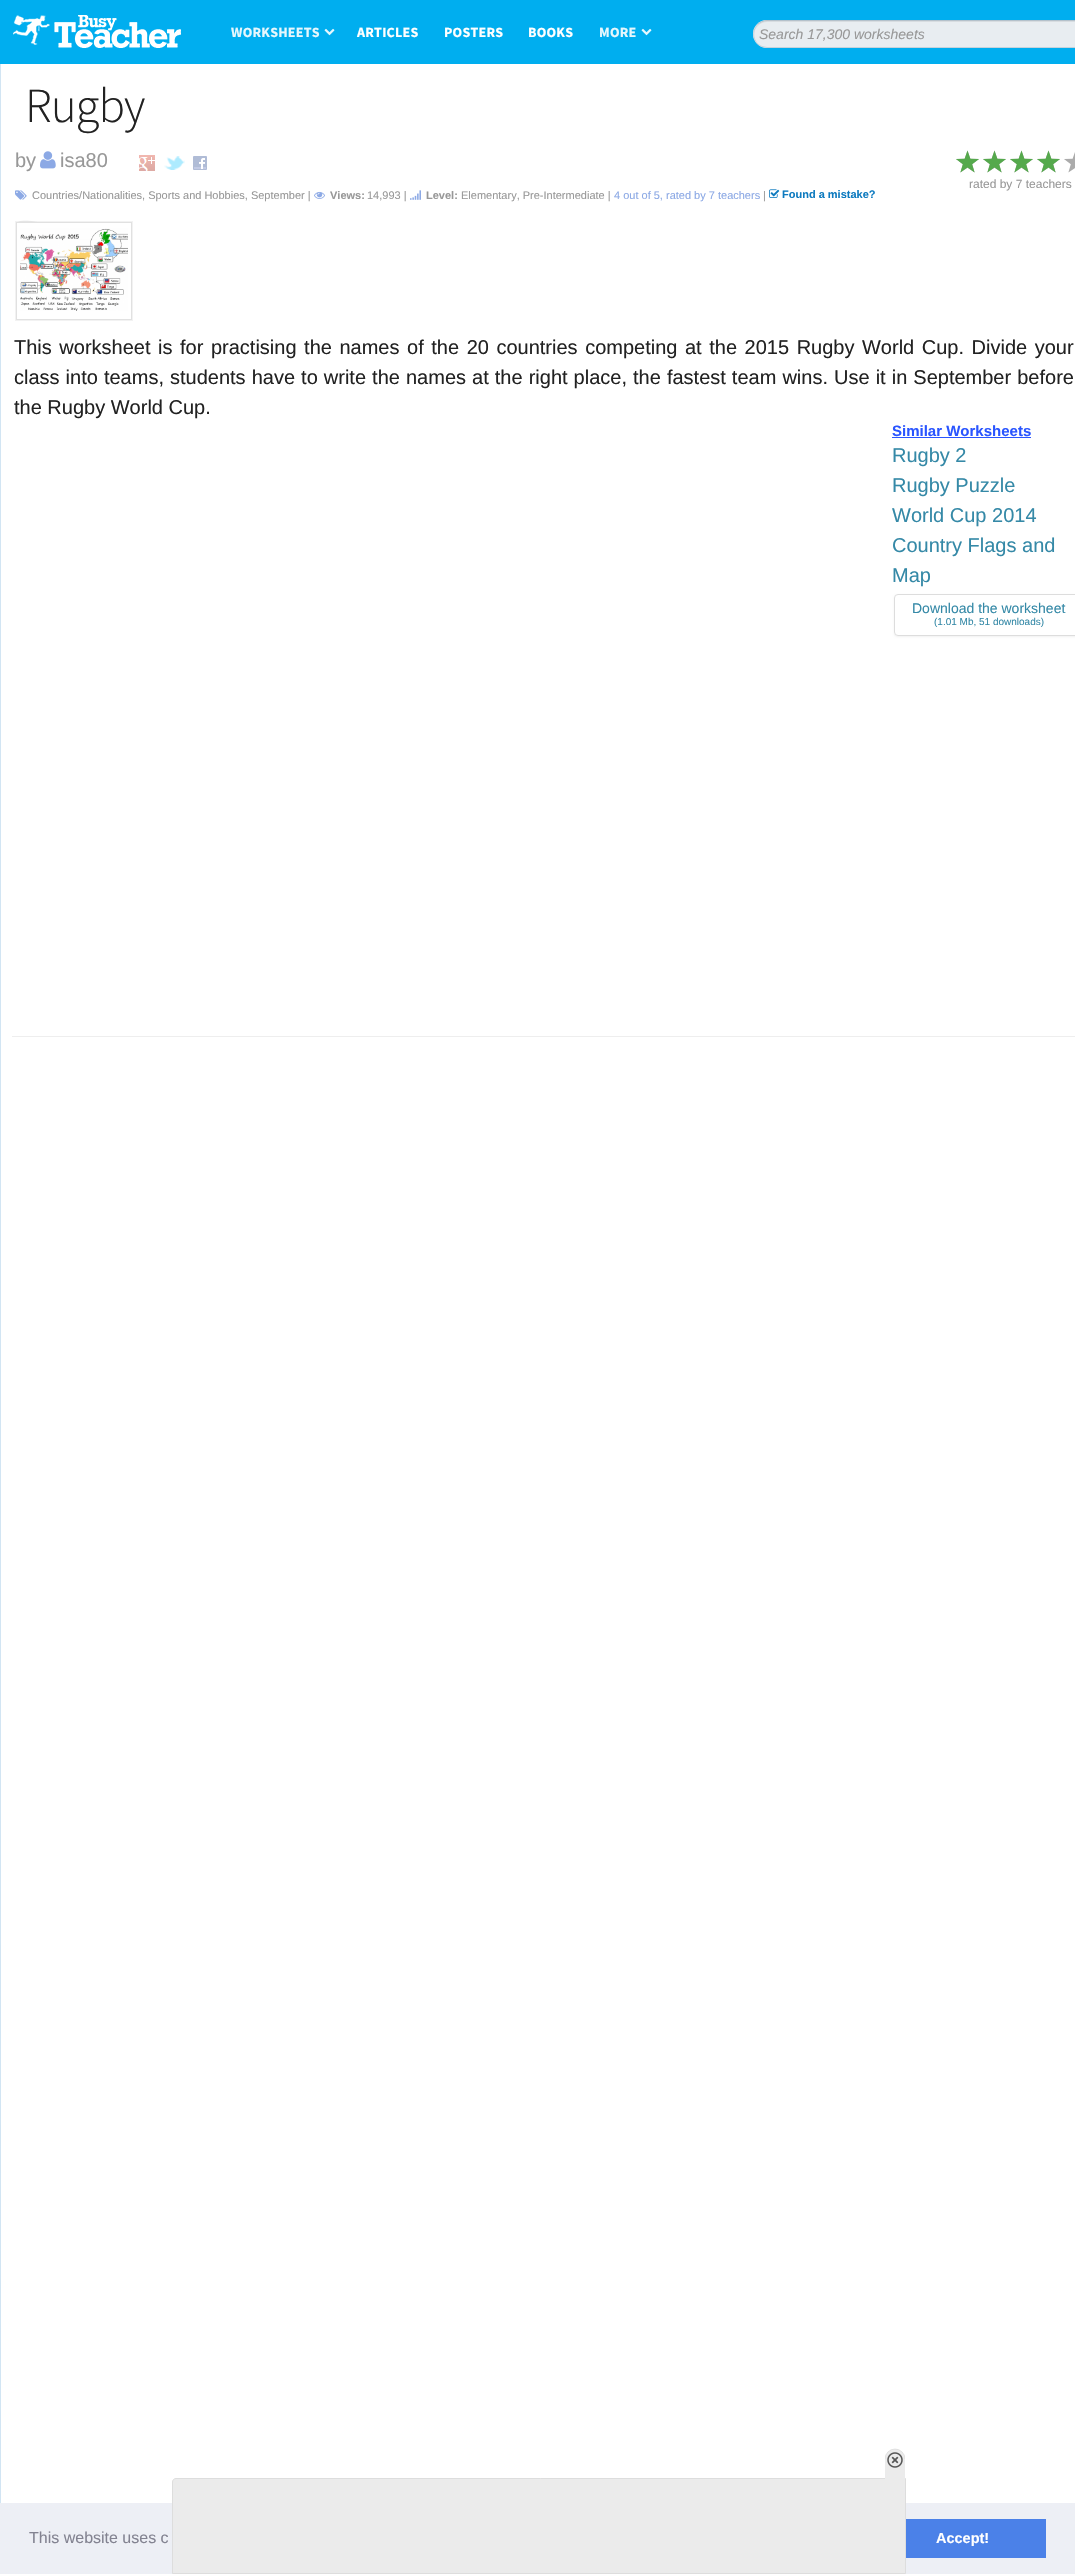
void draw(SkCanvas* canvas) {
	SkPaint paint;
	paint.setAntiAlias(true);
	auto spacedText = [&](const char* s, float x, float y, const SkFont& font, const SkPaint& ink, float letter, float word) {
		std::vector<SkGlyphID> glyphs(font.countText(s, strlen(s), SkTextEncoding::kUTF8));
		std::vector<float> xs(glyphs.size());
		font.textToGlyphs(s, strlen(s), SkTextEncoding::kUTF8, glyphs);
		font.getXPos(glyphs, xs, x);
		float extra = 0;
		for (size_t i = 0; i < glyphs.size(); i++) {
			xs[i] += extra;
			extra += letter + word * (glyphs[i] == font.unicharToGlyph(' '));
		}
		canvas->drawTextBlob(SkTextBlob::MakeFromPosHGlyphs(glyphs, xs, y, font), 0, 0, ink);
	};
	auto svgPath = [&](const char* data, bool evenOdd = false) {
		SkPath result = *SkParsePath::FromSVGString(data);
		if (evenOdd) result.setFillType(SkPathFillType::kEvenOdd);
		return result;
	};
	canvas->clear(0xffffffff);
	paint.setStroke(true);
	paint.setStrokeWidth(1);
	paint.setColor(0xffd2e5f3);
	canvas->drawRect(SkRect::MakeXYWH(0.5, -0.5, 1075, 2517), paint);
	paint.setStroke(false);
	paint.setColor(0xff00aeef);
	canvas->drawRect(SkRect::MakeXYWH(0, 0, 1075, 64), paint);
	canvas->drawImageRect(SkImages::DeferredFromEncodedData(SkData::MakeFromFileName("img1.png")), SkRect::MakeXYWH(13, 15, 168, 33), SkSamplingOptions());
	SkFont f1(fontMgr->matchFamilyStyle("Source Sans Pro", SkFontStyle::Bold()), 14);
	f1.setSubpixel(true);
	paint.setColor(0xffe6f7fd);
	spacedText("WORKSHEETS", 231, 37, f1, paint, 0.25, 0);
	canvas->drawImageRect(SkImages::DeferredFromEncodedData(SkData::MakeFromFileName("img2.png")), SkRect::MakeXYWH(324, 28, 11, 8), SkSamplingOptions());
	paint.setColor(0xffffffff);
	spacedText("ARTICLES", 357, 37, f1, paint, 0.25, 0);
	spacedText("POSTERS", 444, 37, f1, paint, 0.25, 0);
	spacedText("BOOKS", 528, 37, f1, paint, 0.25, 0);
	paint.setColor(0xffe6f7fd);
	spacedText("MORE", 599, 37, f1, paint, 0.25, 0);
	canvas->drawImageRect(SkImages::DeferredFromEncodedData(SkData::MakeFromFileName("img2.png")), SkRect::MakeXYWH(641, 28, 11, 8), SkSamplingOptions());
	paint.setColor(0xffe8edf1);
	canvas->drawRoundRect(SkRect::MakeXYWH(753, 20, 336, 28), 14, 14, paint);
	paint.setStroke(true);
	paint.setColor(0xffb4c1cb);
	canvas->drawPath(svgPath("M757.5 24.5C760 22 763.5 20.5 767 20.5H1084C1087.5 20.5 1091 22 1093.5 24.5"), paint);
	paint.setColor(0xffc6d2db);
	canvas->drawPath(svgPath("M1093.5 24.5C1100 31 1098 43 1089 46.5L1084 47.5H767L762 46.5C753 43 751 31 757.5 24.5"), paint);
	paint.setStroke(false);
	paint.setColor(0x12000000);
	canvas->drawPath(svgPath("M767 22C760 22 754 28 754 35V34C754 27 760 21 767 21H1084L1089 22Z"), paint);
	SkFont f2(fontMgr->matchFamilyStyle("Liberation Sans", SkFontStyle::Italic()), 14);
	f2.setSubpixel(true);
	paint.setColor(0xff989898);
	canvas->drawString("Search 17,300 worksheets", 759, 39, f2, paint);
	SkFont f3(fontMgr->matchFamilyStyle("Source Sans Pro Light", SkFontStyle(300, SkFontStyle::kNormal_Width, SkFontStyle::kUpright_Slant)), 49);
	f3.setSubpixel(true);
	paint.setColor(0xff222222);
	spacedText("Rugby", 25, 122, f3, paint, -1, 0);
	SkFont f4(fontMgr->matchFamilyStyle("Liberation Sans", SkFontStyle::Normal()), 20);
	f4.setSubpixel(true);
	paint.setColor(0xff989898);
	canvas->drawString("by", 15, 167, f4, paint);
	canvas->drawImageRect(SkImages::DeferredFromEncodedData(SkData::MakeFromFileName("img3.png")), SkRect::MakeXYWH(40, 151, 16, 18), SkSamplingOptions());
	canvas->drawString("isa80", 60, 167, f4, paint);
	canvas->drawImageRect(SkImages::DeferredFromEncodedData(SkData::MakeFromFileName("img4.png")), SkRect::MakeXYWH(139, 155, 16, 16), SkSamplingOptions());
	canvas->drawImageRect(SkImages::DeferredFromEncodedData(SkData::MakeFromFileName("img5.png")), SkRect::MakeXYWH(164, 156, 21, 14), SkSamplingOptions());
	canvas->drawImageRect(SkImages::DeferredFromEncodedData(SkData::MakeFromFileName("img6.png")), SkRect::MakeXYWH(193, 156, 14, 14), SkSamplingOptions());
	canvas->drawImageRect(SkImages::DeferredFromEncodedData(SkData::MakeFromFileName("img7.png")), SkRect::MakeXYWH(956, 150, 119, 23), SkSamplingOptions());
	canvas->drawImageRect(SkImages::DeferredFromEncodedData(SkData::MakeFromFileName("img8.png")), SkRect::MakeXYWH(956, 150, 104, 23), SkSamplingOptions());
	SkFont f5(fontMgr->matchFamilyStyle("Liberation Sans", SkFontStyle::Normal()), 12);
	f5.setSubpixel(true);
	canvas->drawString("rated by 7 teachers", 969, 188, f5, paint);
	canvas->drawImageRect(SkImages::DeferredFromEncodedData(SkData::MakeFromFileName("img9.png")), SkRect::MakeXYWH(15, 190, 12, 10), SkSamplingOptions());
	SkFont f6(fontMgr->matchFamilyStyle("Liberation Sans", SkFontStyle::Normal()), 11);
	f6.setSubpixel(true);
	canvas->drawString("Countries/Nationalities, Sports and Hobbies, September |", 32, 199, f6, paint);
	canvas->drawImageRect(SkImages::DeferredFromEncodedData(SkData::MakeFromFileName("img10.png")), SkRect::MakeXYWH(314, 191, 11, 8), SkSamplingOptions());
	SkFont f7(fontMgr->matchFamilyStyle("Liberation Sans", SkFontStyle::Bold()), 11);
	f7.setSubpixel(true);
	canvas->drawString("Views:", 330, 199, f7, paint);
	canvas->drawString("14,993 |", 367, 199, f6, paint);
	canvas->drawImageRect(SkImages::DeferredFromEncodedData(SkData::MakeFromFileName("img11.png")), SkRect::MakeXYWH(410, 190, 11, 10), SkSamplingOptions());
	canvas->drawString("Level:", 426, 199, f7, paint);
	canvas->drawString("Elementary, Pre-Intermediate |", 461, 199, f6, paint);
	paint.setColor(0xff8ca9e5);
	canvas->drawString("4 out of 5, rated by 7 teachers", 614, 199, f6, paint);
	paint.setColor(0xff989898);
	canvas->drawString("|", 763, 199, f6, paint);
	canvas->drawImageRect(SkImages::DeferredFromEncodedData(SkData::MakeFromFileName("img12.png")), SkRect::MakeXYWH(769, 189, 11, 9), SkSamplingOptions());
	paint.setColor(0xff0d7abf);
	canvas->drawString("Found a mistake?", 782, 198, f7, paint);
	paint.setColor(0xfff2f2f2);
	canvas->drawPath(svgPath("M19 223H129C131 223 132 224 132 226C132 224 131 222 129 222H37C36 222 16 217 16 226C16 224 17 223 19 223Z"), paint);
	paint.setStroke(true);
	paint.setColor(0x0d000000);
	canvas->drawRect(SkRect::MakeXYWH(15.5, 221.5, 117, 99), paint);
	paint.setStroke(false);
	paint.setColor(0xffffffff);
	canvas->drawRect(SkRect::MakeXYWH(17, 223, 114, 1), paint);
	paint.setStroke(true);
	paint.setColor(0xffe1e1e1);
	canvas->drawRect(SkRect::MakeXYWH(16.5, 222.5, 115, 97), paint);
	canvas->drawImageRect(SkImages::DeferredFromEncodedData(SkData::MakeFromFileName("img13.png")), SkRect::MakeXYWH(20, 228, 108, 83), SkSamplingOptions());
	paint.setStroke(false);
	paint.setColor(0xff222222);
	spacedText("This worksheet is for practising the names of the 20 countries competing at the 2015 Rugby World Cup. Divide your", 14, 354, f4, paint, 0, 2);
	spacedText("class into teams, students have to write the names at the right place, the fastest team wins. Use it in September before", 14, 384, f4, paint, 0, 0.5);
	canvas->drawString("the Rugby World Cup.", 14, 414, f4, paint);
	SkFont f8(fontMgr->matchFamilyStyle("Liberation Sans", SkFontStyle::Bold()), 15);
	f8.setSubpixel(true);
	paint.setColor(0xff2a55ff);
	canvas->drawString("Similar Worksheets", 892, 436, f8, paint);
	canvas->drawRect(SkRect::MakeXYWH(892, 437, 139, 1), paint);
	paint.setColor(0xff3589a7);
	canvas->drawString("Rugby 2", 892, 462, f4, paint);
	canvas->drawString("Rugby Puzzle", 892, 492, f4, paint);
	canvas->drawString("World Cup 2014", 892, 522, f4, paint);
	canvas->drawString("Country Flags and", 892, 552, f4, paint);
	canvas->drawString("Map", 892, 582, f4, paint);
	paint.setColor(0x0d000000);
	paint.setMaskFilter(SkMaskFilter::MakeBlur(kNormal_SkBlurStyle, 1));
	canvas->drawRoundRect(SkRect::MakeXYWH(894, 595, 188, 42), 4, 4, paint);
	paint.setMaskFilter(nullptr);
	paint.setColor(0xffffffff);
	canvas->drawPath(svgPath("M898 594H1075V636H898C896 636 894 634 894 632V598C894 596 896 594 898 594Z"), paint);
	paint.setStroke(true);
	paint.setColor(0xffdddddd);
	canvas->drawRoundRect(SkRect::MakeXYWH(894.5, 594.5, 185, 41), 3.5, 3.5, paint);
	SkFont f9(fontMgr->matchFamilyStyle("Liberation Sans", SkFontStyle::Normal()), 14);
	f9.setSubpixel(true);
	paint.setStroke(false);
	paint.setColor(0xff3589a7);
	canvas->drawString("Download the worksheet", 912, 613, f9, paint);
	SkFont f10(fontMgr->matchFamilyStyle("Liberation Sans", SkFontStyle::Normal()), 10);
	f10.setSubpixel(true);
	canvas->drawString("(1.01 Mb, 51 downloads)", 934, 625, f10, paint);
	paint.setColor(0xffeeeeee);
	canvas->drawRect(SkRect::MakeXYWH(12, 1036, 1063, 1), paint);
	paint.setColor(0xffedeff5);
	canvas->drawRect(SkRect::MakeXYWH(0, 2503, 1075, 71), paint);
	paint.setColor(0xffebebeb);
	canvas->drawPath(svgPath("M176 2478.5H905.5V2573.5H172.5V2482C172.5 2480 174 2478.5 176 2478.5Z"), paint);
	paint.setStroke(true);
	paint.setColor(0xffdddddd);
	canvas->drawPath(svgPath("M176 2478.5H905.5V2573.5H172.5V2482C172.5 2480 174 2478.5 176 2478.5Z"), paint);
	paint.setStroke(false);
	paint.setColor(0xffebebeb);
	canvas->drawCircle(895, 2459, 10, paint);
	canvas->save();
	canvas->clipRect(SkRect::MakeXYWH(885, 2439, 20, 40));
	paint.setStroke(true);
	paint.setStrokeWidth(0.5);
	paint.setColor(0xffcccccc);
	canvas->drawCircle(895, 2459, 10, paint);
	canvas->restore();
	paint.setStroke(false);
	paint.setColor(0xffebebeb);
	canvas->drawRect(SkRect::MakeXYWH(885, 2459, 20, 20), paint);
	canvas->drawImageRect(SkImages::DeferredFromEncodedData(SkData::MakeFromFileName("img14.png")), SkRect::MakeXYWH(887, 2452, 16, 16), SkSamplingOptions());
	SkFont f11(fontMgr->matchFamilyStyle("Liberation Sans", SkFontStyle::Normal()), 16);
	f11.setSubpixel(true);
	paint.setColor(0xff838391);
	canvas->drawString("This website uses c", 29, 2543, f11, paint);
	paint.setColor(0xff4b81e8);
	canvas->drawRect(SkRect::MakeXYWH(906, 2519, 140, 39), paint);
	SkFont f12(fontMgr->matchFamilyStyle("Liberation Sans", SkFontStyle::Bold()), 14.5);
	f12.setSubpixel(true);
	paint.setColor(0xffffffff);
	canvas->drawString("Accept!", 936, 2543, f12, paint);
}
